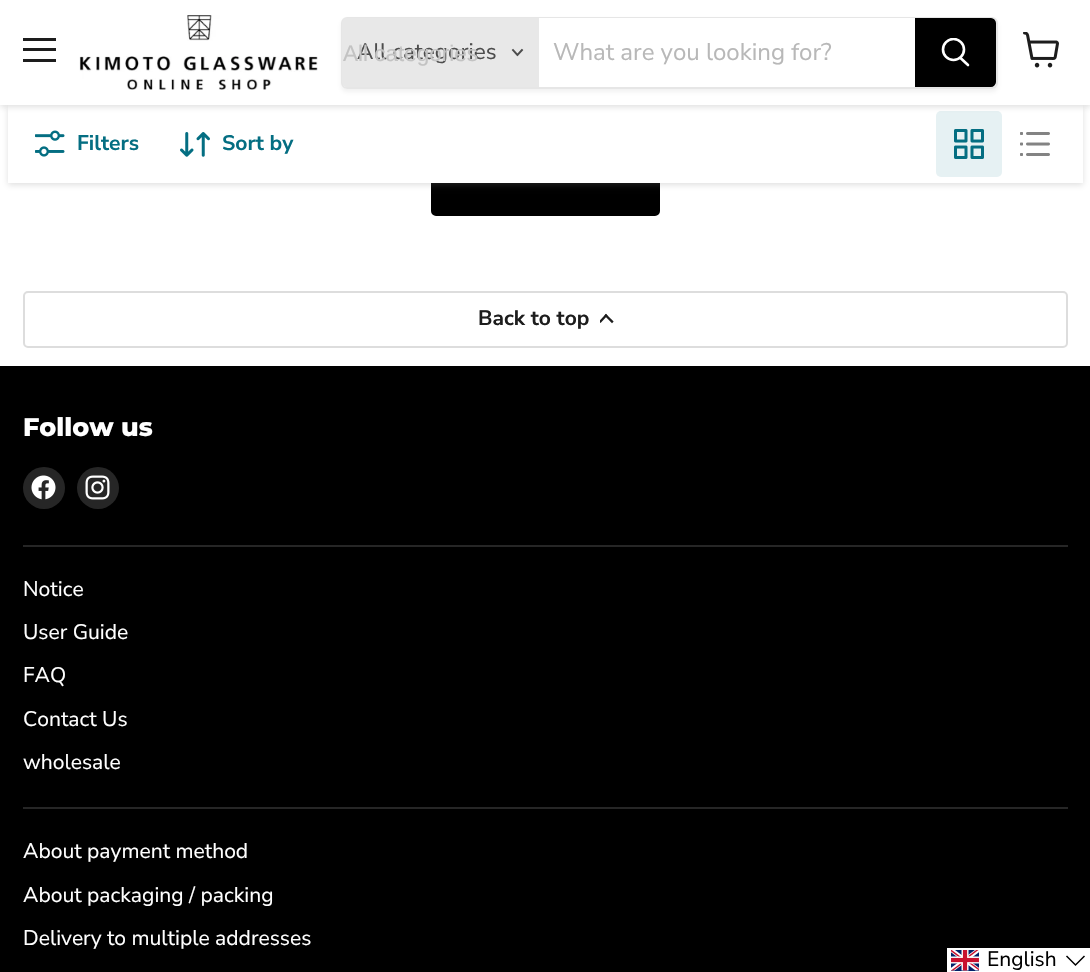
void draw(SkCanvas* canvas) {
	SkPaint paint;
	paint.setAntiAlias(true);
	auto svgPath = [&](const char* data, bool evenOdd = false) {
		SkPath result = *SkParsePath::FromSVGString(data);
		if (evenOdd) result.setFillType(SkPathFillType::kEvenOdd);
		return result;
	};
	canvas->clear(0xffffffff);
	paint.setColor(0xff000000);
	canvas->drawRoundRect(SkRect::MakeXYWH(432, 154, 227, 61), 4, 4, paint);
	paint.setStroke(true);
	paint.setStrokeWidth(2);
	canvas->drawRoundRect(SkRect::MakeXYWH(432, 154, 227, 61), 4, 4, paint);
	paint.setStroke(false);
	paint.setColor(0x40808080);
	paint.setMaskFilter(SkMaskFilter::MakeBlur(kNormal_SkBlurStyle, 3));
	canvas->drawRect(SkRect::MakeXYWH(8, 107, 1075, 78), paint);
	paint.setMaskFilter(nullptr);
	paint.setColor(0xffffffff);
	canvas->drawRect(SkRect::MakeXYWH(8, 105, 1075, 78), paint);
	paint.setColor(0xffe6f1f3);
	canvas->drawRoundRect(SkRect::MakeXYWH(936, 111, 66, 66), 5, 5, paint);
	paint.setColor(0x40808080);
	paint.setMaskFilter(SkMaskFilter::MakeBlur(kNormal_SkBlurStyle, 3));
	canvas->drawRect(SkRect::MakeXYWH(0, 2, 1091, 105), paint);
	paint.setMaskFilter(nullptr);
	paint.setColor(0xffffffff);
	canvas->drawRect(SkRect::MakeXYWH(0, 0, 1090, 105), paint);
	paint.setColor(0xff1d1d1d);
	canvas->drawRect(SkRect::MakeXYWH(23, 38, 33, 3), paint);
	canvas->drawRect(SkRect::MakeXYWH(23, 48, 33, 3), paint);
	canvas->drawRect(SkRect::MakeXYWH(23, 59, 33, 3), paint);
	canvas->drawImageRect(SkImages::DeferredFromEncodedData(SkData::MakeFromFileName("img1.png")), SkRect::MakeXYWH(79, 15, 239, 75), SkSamplingOptions());
	canvas->save();
	canvas->clipPath(svgPath("M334 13H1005V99H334ZM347 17H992C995.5 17 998 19.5 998 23V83C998 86.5 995.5 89 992 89H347C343.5 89 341 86.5 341 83V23C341 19.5 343.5 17 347 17Z", true), true);
	paint.setColor(0x1c808080);
	paint.setMaskFilter(SkMaskFilter::MakeBlur(kNormal_SkBlurStyle, 2));
	canvas->drawRoundRect(SkRect::MakeXYWH(341, 20, 657, 72), 6, 6, paint);
	paint.setMaskFilter(nullptr);
	canvas->restore();
	paint.setStroke(true);
	paint.setColor(0x33808080);
	canvas->drawRoundRect(SkRect::MakeXYWH(342, 18, 655, 70), 5, 5, paint);
	paint.setStroke(false);
	paint.setColor(0xffe8e8e8);
	canvas->drawPath(svgPath("M347 18H539V87H347C344 87 342 85 342 82V23C342 20 344 18 347 18Z"), paint);
	SkFont f1(fontMgr->matchFamilyStyle("Nunito Sans", SkFontStyle::Normal()), 22.5);
	f1.setSubpixel(true);
	paint.setColor(0xff4d4d4d);
	canvas->drawString("All categories", 357, 59, f1, paint);
	SkFont f2(fontMgr->matchFamilyStyle("Liberation Sans", SkFontStyle::Normal()), 22.5);
	f2.setSubpixel(true);
	paint.setColor(0xffc3c3c3);
	canvas->drawString("All categories", 343, 61, f2, paint);
	paint.setStroke(true);
	paint.setStrokeWidth(1.9);
	paint.setStrokeCap(SkPaint::kSquare_Cap);
	paint.setColor(0xff4d4d4d);
	canvas->drawPath(svgPath("M517.5 55L522 50M517.5 55L513 50"), paint);
	paint.setStroke(false);
	paint.setColor(0xffffffff);
	canvas->drawRect(SkRect::MakeXYWH(539, 18, 376, 1), paint);
	SkFont f3(fontMgr->matchFamilyStyle("Nunito Sans", SkFontStyle::Normal()), 24);
	f3.setSubpixel(true);
	paint.setColor(0xffb8b8b8);
	canvas->drawString("What are you looking for?", 553, 60, f3, paint);
	paint.setColor(0xff000000);
	canvas->drawPath(svgPath("M916 19H991C993 19 995 21 995 23V82C995 84 993 86 991 86H916Z"), paint);
	paint.setStroke(true);
	paint.setStrokeWidth(2);
	paint.setStrokeCap(SkPaint::kButt_Cap);
	canvas->drawPath(svgPath("M916 19H991C993 19 995 21 995 23V82C995 84 993 86 991 86H916Z"), paint);
	paint.setStrokeWidth(2.6);
	paint.setStrokeCap(SkPaint::kRound_Cap);
	paint.setColor(0xffffffff);
	canvas->drawPath(svgPath("M968 65L960.5 58"), paint);
	canvas->save();
	canvas->clipRect(SkRect::MakeXYWH(941, 38, 30, 31));
	paint.setStrokeCap(SkPaint::kButt_Cap);
	canvas->drawCircle(953.5, 49.5, 10.5, paint);
	canvas->restore();
	canvas->drawImageRect(SkImages::DeferredFromEncodedData(SkData::MakeFromFileName("img2.png")), SkRect::MakeXYWH(1023, 32, 36, 36), SkSamplingOptions());
	canvas->drawImageRect(SkImages::DeferredFromEncodedData(SkData::MakeFromFileName("img3.png")), SkRect::MakeXYWH(35, 130, 30, 27), SkSamplingOptions());
	SkFont f4(fontMgr->matchFamilyStyle("Nunito Sans", SkFontStyle::Bold()), 21.1);
	f4.setSubpixel(true);
	paint.setStroke(false);
	paint.setColor(0xff046e82);
	canvas->drawString("Filters", 77, 150, f4, paint);
	canvas->drawImageRect(SkImages::DeferredFromEncodedData(SkData::MakeFromFileName("img4.png")), SkRect::MakeXYWH(180, 132, 30, 25), SkSamplingOptions());
	canvas->drawString("Sort by", 222, 150, f4, paint);
	canvas->drawImageRect(SkImages::DeferredFromEncodedData(SkData::MakeFromFileName("img5.png")), SkRect::MakeXYWH(954, 129, 30, 30), SkSamplingOptions());
	canvas->drawImageRect(SkImages::DeferredFromEncodedData(SkData::MakeFromFileName("img6.png")), SkRect::MakeXYWH(1020, 132, 30, 24), SkSamplingOptions());
	paint.setStroke(true);
	paint.setStrokeWidth(2);
	paint.setColor(0xffdddddd);
	canvas->drawRoundRect(SkRect::MakeXYWH(24, 292, 1043, 55), 4, 4, paint);
	SkFont f5(fontMgr->matchFamilyStyle("Nunito Sans", SkFontStyle::Bold()), 21);
	f5.setSubpixel(true);
	paint.setStroke(false);
	paint.setColor(0xff1d1d1d);
	canvas->drawString("Back to top", 478, 325, f5, paint);
	canvas->save();
	canvas->clipRect(SkRect::MakeXYWH(600, 314, 15, 10));
	paint.setStroke(true);
	paint.setStrokeWidth(2.3);
	paint.setStrokeCap(SkPaint::kSquare_Cap);
	canvas->drawPath(svgPath("M606 315.5L600.5 321.5"), paint);
	canvas->restore();
	canvas->drawPath(svgPath("M606 315.5L612 321.5"), paint);
	paint.setStroke(false);
	paint.setColor(0xff000000);
	canvas->drawRect(SkRect::MakeXYWH(0, 366, 1090, 606), paint);
	paint.setColor(0xff262626);
	canvas->drawRect(SkRect::MakeXYWH(23, 545, 1045, 2), paint);
	SkFont f6(fontMgr->matchFamilyStyle("Montserrat", SkFontStyle(800, SkFontStyle::kNormal_Width, SkFontStyle::kUpright_Slant)), 25.5);
	f6.setSubpixel(true);
	paint.setColor(0xffffffff);
	canvas->drawString("Follow us", 23, 436, f6, paint);
	paint.setColor(0xff262626);
	canvas->drawCircle(44, 488, 21, paint);
	canvas->drawImageRect(SkImages::DeferredFromEncodedData(SkData::MakeFromFileName("img7.png")), SkRect::MakeXYWH(31, 475, 25, 25), SkSamplingOptions());
	canvas->drawCircle(98, 488, 21, paint);
	canvas->drawImageRect(SkImages::DeferredFromEncodedData(SkData::MakeFromFileName("img8.png")), SkRect::MakeXYWH(85, 475, 25, 25), SkSamplingOptions());
	canvas->drawRect(SkRect::MakeXYWH(23, 807, 1045, 2), paint);
	SkFont f7(fontMgr->matchFamilyStyle("Nunito Sans", SkFontStyle::Normal()), 21.1);
	f7.setSubpixel(true);
	paint.setColor(0xffffffff);
	canvas->drawString("Notice", 23, 596, f7, paint);
	canvas->drawString("User Guide", 23, 639, f7, paint);
	canvas->drawString("FAQ", 23, 682, f7, paint);
	canvas->drawString("Contact Us", 23, 726, f7, paint);
	canvas->drawString("wholesale", 23, 769, f7, paint);
	canvas->drawString("About payment method", 23, 858, f7, paint);
	canvas->drawString("About packaging / packing", 23, 902, f7, paint);
	canvas->drawString("Delivery to multiple addresses", 23, 945, f7, paint);
	canvas->drawRect(SkRect::MakeXYWH(947, 948, 143, 24), paint);
	canvas->drawImageRect(SkImages::DeferredFromEncodedData(SkData::MakeFromFileName("img9.png")), SkRect::MakeXYWH(951, 950, 28, 21), SkSamplingOptions());
	SkFont f8(fontMgr->matchFamilyStyle("Nunito Sans", SkFontStyle::Normal()), 21);
	f8.setSubpixel(true);
	paint.setColor(0xff000000);
	canvas->drawString("English", 987, 966, f8, paint);
	paint.setStroke(true);
	paint.setStrokeWidth(1.5);
	paint.setStrokeCap(SkPaint::kButt_Cap);
	canvas->drawPath(svgPath("M1066.5 956L1075.5 965L1084.5 956"), paint);
}
